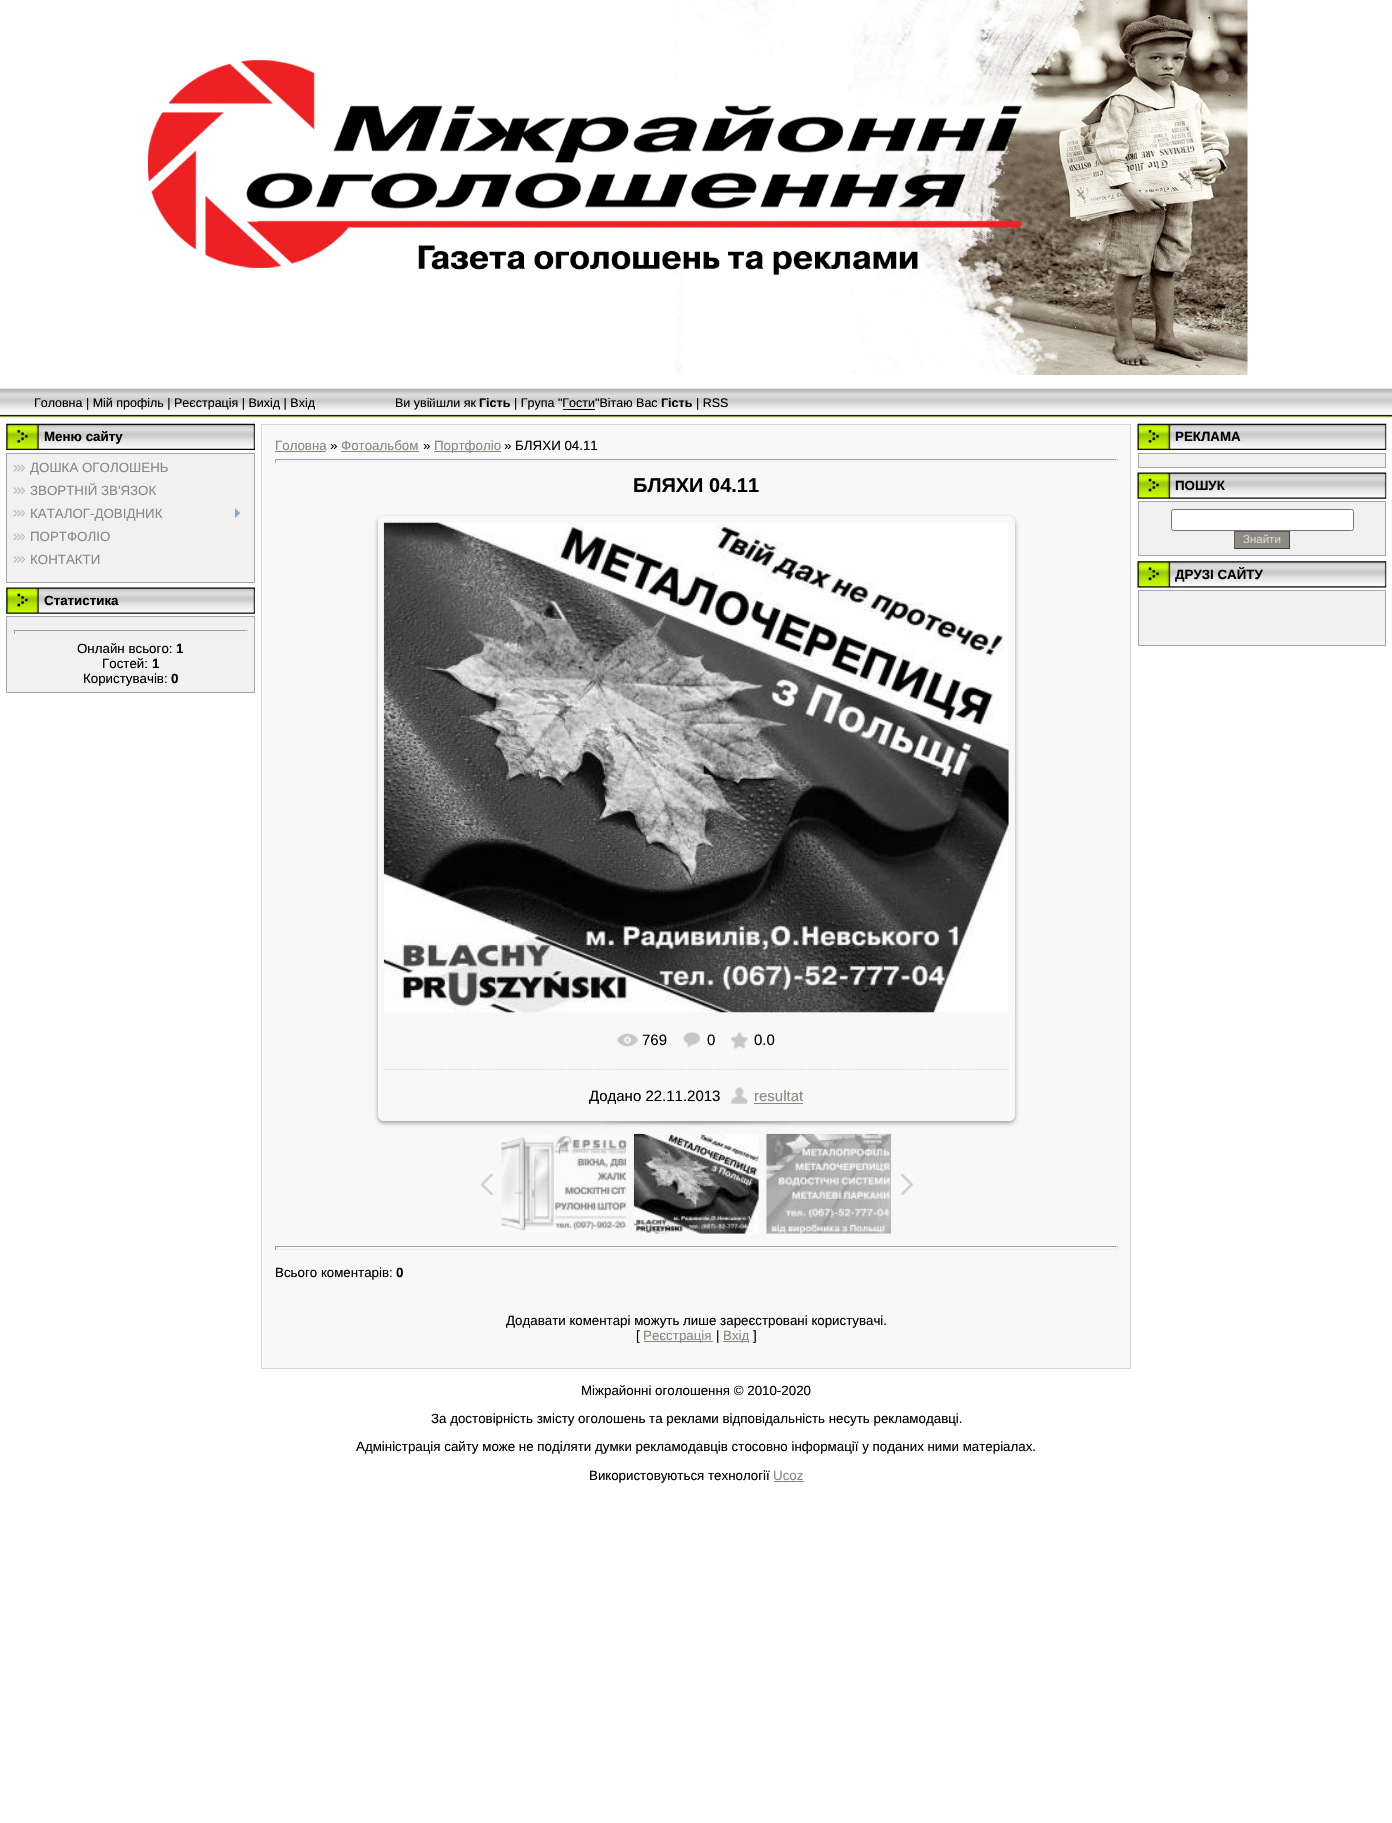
void draw(SkCanvas* canvas) {
	SkPaint paint;
	paint.setAntiAlias(true);
	auto svgPath = [&](const char* data, bool evenOdd = false) {
		SkPath result = *SkParsePath::FromSVGString(data);
		if (evenOdd) result.setFillType(SkPathFillType::kEvenOdd);
		return result;
	};
	canvas->clear(0xffffffff);
	canvas->drawImageRect(SkImages::DeferredFromEncodedData(SkData::MakeFromFileName("img1.png")), SkRect::MakeXYWH(148, 0, 1100, 375), SkSamplingOptions());
	canvas->drawImageRect(SkImages::DeferredFromEncodedData(SkData::MakeFromFileName("img2.png")), SkRect::MakeXYWH(0, 388, 1392, 30), SkSamplingOptions());
	SkFont f1(fontMgr->matchFamilyStyle("Liberation Sans", SkFontStyle::Normal()), 12.5);
	f1.setSubpixel(true);
	paint.setColor(0xff000000);
	canvas->drawString("Головна | Мій профіль | Реєстрація | Вихід | Вхід", 34, 407, f1, paint);
	canvas->drawString("Ви уві", 395, 407, f1, paint);
	SkFont f2(fontMgr->matchFamilyStyle("Liberation Serif", SkFontStyle::Normal()), 12.5);
	f2.setSubpixel(true);
	canvas->drawString("й", 429, 407, f2, paint);
	canvas->drawString("шли як", 436, 407, f1, paint);
	SkFont f3(fontMgr->matchFamilyStyle("Liberation Sans", SkFontStyle::Bold()), 12.5);
	f3.setSubpixel(true);
	canvas->drawString("Гість", 479, 407, f3, paint);
	canvas->drawString("| Група \"Гости\"Вітаю Вас", 514, 407, f1, paint);
	canvas->drawString("Гість", 661, 407, f3, paint);
	canvas->drawString("| RSS", 696, 407, f1, paint);
	canvas->drawRect(SkRect::MakeXYWH(563, 409, 32, 1), paint);
	canvas->drawImageRect(SkImages::DeferredFromEncodedData(SkData::MakeFromFileName("img3.png")), SkRect::MakeXYWH(6, 423, 249, 27), SkSamplingOptions());
	SkFont f4(fontMgr->matchFamilyStyle("Liberation Sans", SkFontStyle::Bold()), 13.33);
	f4.setSubpixel(true);
	canvas->drawString("Меню сайту", 44, 441, f4, paint);
	paint.setColor(0xfff1f1f1);
	canvas->drawRect(SkRect::MakeXYWH(6.5, 453.5, 248, 129), paint);
	paint.setStroke(true);
	paint.setStrokeWidth(1);
	paint.setColor(0xffa7a6a6);
	canvas->drawRect(SkRect::MakeXYWH(6.5, 453.5, 248, 129), paint);
	canvas->drawImageRect(SkImages::DeferredFromEncodedData(SkData::MakeFromFileName("img4.png")), SkRect::MakeXYWH(13, 464, 12, 8), SkSamplingOptions());
	SkFont f5(fontMgr->matchFamilyStyle("Liberation Sans", SkFontStyle::Normal()), 13.33);
	f5.setSubpixel(true);
	paint.setStroke(false);
	paint.setColor(0xff8b8881);
	canvas->drawString("ДОШКА ОГОЛОШЕНЬ", 30, 472, f5, paint);
	canvas->drawImageRect(SkImages::DeferredFromEncodedData(SkData::MakeFromFileName("img5.png")), SkRect::MakeXYWH(13, 487, 12, 7), SkSamplingOptions());
	canvas->drawString("ЗВОРТНІЙ ЗВ'ЯЗОК", 30, 495, f5, paint);
	canvas->drawImageRect(SkImages::DeferredFromEncodedData(SkData::MakeFromFileName("img4.png")), SkRect::MakeXYWH(13, 509, 12, 8), SkSamplingOptions());
	canvas->drawString("КАТАЛОГ-ДОВІДНИК", 30, 518, f5, paint);
	canvas->drawImageRect(SkImages::DeferredFromEncodedData(SkData::MakeFromFileName("img6.png")), SkRect::MakeXYWH(235, 508, 5, 10), SkSamplingOptions());
	canvas->drawImageRect(SkImages::DeferredFromEncodedData(SkData::MakeFromFileName("img7.png")), SkRect::MakeXYWH(13, 533, 12, 8), SkSamplingOptions());
	canvas->drawString("ПОРТФОЛІО", 30, 541, f5, paint);
	canvas->drawImageRect(SkImages::DeferredFromEncodedData(SkData::MakeFromFileName("img8.png")), SkRect::MakeXYWH(13, 556, 12, 7), SkSamplingOptions());
	canvas->drawString("КОНТАКТИ", 30, 564, f5, paint);
	paint.setColor(0xffd4dff7);
	canvas->drawRect(SkRect::MakeXYWH(6, 588, 249, 26), paint);
	canvas->drawImageRect(SkImages::DeferredFromEncodedData(SkData::MakeFromFileName("img9.png")), SkRect::MakeXYWH(6, 587, 249, 27), SkSamplingOptions());
	paint.setColor(0xff000000);
	canvas->drawString("Статистика", 44, 605, f4, paint);
	paint.setColor(0xfff1f1f1);
	canvas->drawRect(SkRect::MakeXYWH(6.5, 616.5, 248, 76), paint);
	paint.setStroke(true);
	paint.setColor(0xffa7a6a6);
	canvas->drawRect(SkRect::MakeXYWH(6.5, 616.5, 248, 76), paint);
	paint.setStroke(false);
	paint.setColor(0xff9f9f9f);
	canvas->drawRect(SkRect::MakeXYWH(14, 630, 234, 1), paint);
	paint.setColor(0xffeeeeee);
	canvas->drawRect(SkRect::MakeXYWH(246, 630, 1, 4), paint);
	canvas->drawRect(SkRect::MakeXYWH(14, 633, 234, 1), paint);
	paint.setColor(0xff9f9f9f);
	canvas->drawRect(SkRect::MakeXYWH(14, 630, 1, 4), paint);
	paint.setColor(0xff000000);
	canvas->drawString("Онлайн всього:", 77, 653, f5, paint);
	canvas->drawString("1", 176, 653, f4, paint);
	canvas->drawString("Гостей:", 102, 668, f5, paint);
	canvas->drawString("1", 152, 668, f4, paint);
	canvas->drawString("Користувачів:", 83, 683, f5, paint);
	canvas->drawString("0", 171, 683, f4, paint);
	paint.setStroke(true);
	paint.setColor(0xffd7d7d7);
	canvas->drawRect(SkRect::MakeXYWH(261.5, 424.5, 869, 944), paint);
	paint.setStroke(false);
	paint.setColor(0xfff8f8f8);
	canvas->drawRect(SkRect::MakeXYWH(263, 425, 867, 943), paint);
	paint.setColor(0xff8b8881);
	canvas->drawString("Головна", 275, 450, f5, paint);
	canvas->drawRect(SkRect::MakeXYWH(275, 451, 51, 1), paint);
	paint.setColor(0xff000000);
	canvas->drawString("»", 330, 450, f5, paint);
	paint.setColor(0xff8b8881);
	canvas->drawString("Фотоальбом", 341, 450, f5, paint);
	canvas->drawRect(SkRect::MakeXYWH(341, 451, 78, 1), paint);
	paint.setColor(0xff000000);
	canvas->drawString("»", 423, 450, f5, paint);
	paint.setColor(0xff8b8881);
	canvas->drawRect(SkRect::MakeXYWH(434, 451, 67, 1), paint);
	canvas->drawString("Портфоліо", 434, 450, f5, paint);
	paint.setColor(0xff000000);
	canvas->drawString("» БЛЯХИ 04.11", 504, 450, f5, paint);
	paint.setColor(0xff9f9f9f);
	canvas->drawRect(SkRect::MakeXYWH(275, 459, 843, 1), paint);
	paint.setColor(0xffeeeeee);
	canvas->drawRect(SkRect::MakeXYWH(1116, 459, 1, 4), paint);
	canvas->drawRect(SkRect::MakeXYWH(275, 461, 843, 1), paint);
	paint.setColor(0xff9f9f9f);
	canvas->drawRect(SkRect::MakeXYWH(275, 459, 1, 4), paint);
	SkFont f6(fontMgr->matchFamilyStyle("Liberation Sans", SkFontStyle::Bold()), 20);
	f6.setSubpixel(true);
	paint.setColor(0xff000000);
	canvas->drawString("БЛЯХИ 04.11", 633, 492, f6, paint);
	canvas->save();
	canvas->clipPath(svgPath("M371 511H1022V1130H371ZM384 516H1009C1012.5 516 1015 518.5 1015 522V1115C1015 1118.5 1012.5 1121 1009 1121H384C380.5 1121 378 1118.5 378 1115V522C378 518.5 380.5 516 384 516Z", true), true);
	paint.setColor(0x5e000000);
	paint.setMaskFilter(SkMaskFilter::MakeBlur(kNormal_SkBlurStyle, 2));
	canvas->drawRoundRect(SkRect::MakeXYWH(378, 518, 637, 605), 6, 6, paint);
	paint.setMaskFilter(nullptr);
	canvas->restore();
	canvas->drawImageRect(SkImages::DeferredFromEncodedData(SkData::MakeFromFileName("img10.png")), SkRect::MakeXYWH(383, 522, 626, 491), SkSamplingOptions());
	canvas->drawImageRect(SkImages::DeferredFromEncodedData(SkData::MakeFromFileName("img11.png")), SkRect::MakeXYWH(617, 1033, 21, 14), SkSamplingOptions());
	SkFont f7(fontMgr->matchFamilyStyle("Liberation Sans", SkFontStyle::Normal()), 15);
	f7.setSubpixel(true);
	paint.setColor(0xff000000);
	canvas->drawString("769", 642, 1045, f7, paint);
	canvas->drawImageRect(SkImages::DeferredFromEncodedData(SkData::MakeFromFileName("img12.png")), SkRect::MakeXYWH(683, 1032, 17, 16), SkSamplingOptions());
	canvas->drawString("0", 707, 1045, f7, paint);
	canvas->drawImageRect(SkImages::DeferredFromEncodedData(SkData::MakeFromFileName("img13.png")), SkRect::MakeXYWH(731, 1032, 17, 17), SkSamplingOptions());
	canvas->drawString("0.0", 754, 1045, f7, paint);
	canvas->drawImageRect(SkImages::DeferredFromEncodedData(SkData::MakeFromFileName("img14.png")), SkRect::MakeXYWH(384, 1068, 625, 2), SkSamplingOptions());
	canvas->drawString("Додано 22.11.2013", 589, 1101, f7, paint);
	canvas->drawImageRect(SkImages::DeferredFromEncodedData(SkData::MakeFromFileName("img15.png")), SkRect::MakeXYWH(731, 1087, 17, 17), SkSamplingOptions());
	paint.setColor(0xff8b8881);
	canvas->drawString("resultat", 754, 1101, f7, paint);
	canvas->drawRect(SkRect::MakeXYWH(754, 1103, 49, 1), paint);
	canvas->drawImageRect(SkImages::DeferredFromEncodedData(SkData::MakeFromFileName("img16.png")), SkRect::MakeXYWH(604, 1121, 185, 4), SkSamplingOptions());
	canvas->drawImageRect(SkImages::DeferredFromEncodedData(SkData::MakeFromFileName("img17.png")), SkRect::MakeXYWH(480, 1173, 14, 23), SkSamplingOptions());
	canvas->drawImageRect(SkImages::DeferredFromEncodedData(SkData::MakeFromFileName("img18.png")), SkRect::MakeXYWH(501, 1134, 126, 99), SkSamplingOptions());
	canvas->drawImageRect(SkImages::DeferredFromEncodedData(SkData::MakeFromFileName("img19.png")), SkRect::MakeXYWH(633, 1133, 126, 101), SkSamplingOptions());
	canvas->drawImageRect(SkImages::DeferredFromEncodedData(SkData::MakeFromFileName("img20.png")), SkRect::MakeXYWH(766, 1133, 126, 101), SkSamplingOptions());
	canvas->drawImageRect(SkImages::DeferredFromEncodedData(SkData::MakeFromFileName("img21.png")), SkRect::MakeXYWH(900, 1173, 14, 22), SkSamplingOptions());
	paint.setColor(0xff9f9f9f);
	canvas->drawRect(SkRect::MakeXYWH(275, 1246, 843, 1), paint);
	paint.setColor(0xffeeeeee);
	canvas->drawRect(SkRect::MakeXYWH(1116, 1246, 1, 4), paint);
	canvas->drawRect(SkRect::MakeXYWH(275, 1249, 843, 1), paint);
	paint.setColor(0xff9f9f9f);
	canvas->drawRect(SkRect::MakeXYWH(275, 1246, 1, 4), paint);
	paint.setColor(0xff000000);
	canvas->drawString("Всього коментарів:", 275, 1277, f5, paint);
	canvas->drawString("0", 396, 1277, f4, paint);
	canvas->drawString("Додавати коментарі можуть лише зареєстровані користувачі.", 506, 1325, f5, paint);
	canvas->drawString("[", 636, 1340, f5, paint);
	paint.setColor(0xff8b8881);
	canvas->drawRect(SkRect::MakeXYWH(644, 1341, 69, 1), paint);
	canvas->drawString("Реєстрація", 643, 1340, f5, paint);
	paint.setColor(0xff000000);
	canvas->drawString("|", 716, 1340, f5, paint);
	paint.setColor(0xff8b8881);
	canvas->drawRect(SkRect::MakeXYWH(723, 1341, 26, 1), paint);
	canvas->drawString("Вхід", 723, 1340, f5, paint);
	paint.setColor(0xff000000);
	canvas->drawString("]", 753, 1340, f5, paint);
	canvas->drawImageRect(SkImages::DeferredFromEncodedData(SkData::MakeFromFileName("img22.png")), SkRect::MakeXYWH(1137, 423, 250, 27), SkSamplingOptions());
	canvas->drawString("РЕКЛАМА", 1175, 441, f4, paint);
	paint.setColor(0xfff1f1f1);
	canvas->drawRect(SkRect::MakeXYWH(1138.5, 453.5, 247, 14), paint);
	paint.setStroke(true);
	paint.setColor(0xffa7a6a6);
	canvas->drawRect(SkRect::MakeXYWH(1138.5, 453.5, 247, 14), paint);
	canvas->drawImageRect(SkImages::DeferredFromEncodedData(SkData::MakeFromFileName("img23.png")), SkRect::MakeXYWH(1137, 472, 250, 27), SkSamplingOptions());
	paint.setStroke(false);
	paint.setColor(0xff000000);
	canvas->drawString("ПОШУК", 1175, 490, f4, paint);
	paint.setColor(0xfff1f1f1);
	canvas->drawRect(SkRect::MakeXYWH(1138.5, 501.5, 247, 54), paint);
	paint.setStroke(true);
	paint.setColor(0xffa7a6a6);
	canvas->drawRect(SkRect::MakeXYWH(1138.5, 501.5, 247, 54), paint);
	paint.setStroke(false);
	paint.setColor(0xffffffff);
	canvas->drawRoundRect(SkRect::MakeXYWH(1171.5, 509.5, 182, 21), 2, 2, paint);
	paint.setStroke(true);
	paint.setColor(0xff767676);
	canvas->drawRoundRect(SkRect::MakeXYWH(1171.5, 509.5, 182, 21), 2, 2, paint);
	paint.setStroke(false);
	paint.setColor(0xff8d8a83);
	canvas->drawRect(SkRect::MakeXYWH(1235, 532, 54, 16), paint);
	paint.setColor(0xff615e58);
	canvas->drawRect(SkRect::MakeXYWH(1234, 531, 56, 1), paint);
	paint.setColor(0xff413f3b);
	canvas->drawRect(SkRect::MakeXYWH(1289, 531, 1, 18), paint);
	canvas->drawRect(SkRect::MakeXYWH(1234, 548, 56, 1), paint);
	paint.setColor(0xff615e58);
	canvas->drawRect(SkRect::MakeXYWH(1234, 531, 1, 18), paint);
	SkFont f8(fontMgr->matchFamilyStyle("Liberation Sans", SkFontStyle::Normal()), 11.5);
	f8.setSubpixel(true);
	paint.setColor(0xffdad7cc);
	canvas->drawString("Знайти", 1243, 543, f8, paint);
	paint.setColor(0xffd4dff7);
	canvas->drawRect(SkRect::MakeXYWH(1138, 561, 248, 27), paint);
	canvas->drawImageRect(SkImages::DeferredFromEncodedData(SkData::MakeFromFileName("img24.png")), SkRect::MakeXYWH(1137, 561, 250, 27), SkSamplingOptions());
	paint.setColor(0xff000000);
	canvas->drawString("ДРУЗІ САЙТУ", 1175, 579, f4, paint);
	paint.setColor(0xfff1f1f1);
	canvas->drawRect(SkRect::MakeXYWH(1138.5, 590.5, 247, 55), paint);
	paint.setStroke(true);
	paint.setColor(0xffa7a6a6);
	canvas->drawRect(SkRect::MakeXYWH(1138.5, 590.5, 247, 55), paint);
	paint.setStroke(false);
	paint.setColor(0xff000000);
	canvas->drawString("Міжрайонні оголошення © 2010-2020", 581, 1395, f5, paint);
	canvas->drawString("За достовірність змісту оголошень та реклами відповідальність несуть рекламодавці.", 431, 1423, f5, paint);
	canvas->drawString("Адміністрація сайту може не поділяти думки рекламодавців стосовно інформації у поданих ними матеріалах.", 356, 1451, f5, paint);
	canvas->drawString("Використовуються технології", 589, 1480, f5, paint);
	paint.setColor(0xff8b8881);
	canvas->drawString("Ucoz", 773, 1480, f5, paint);
	canvas->drawRect(SkRect::MakeXYWH(774, 1481, 30, 1), paint);
}
